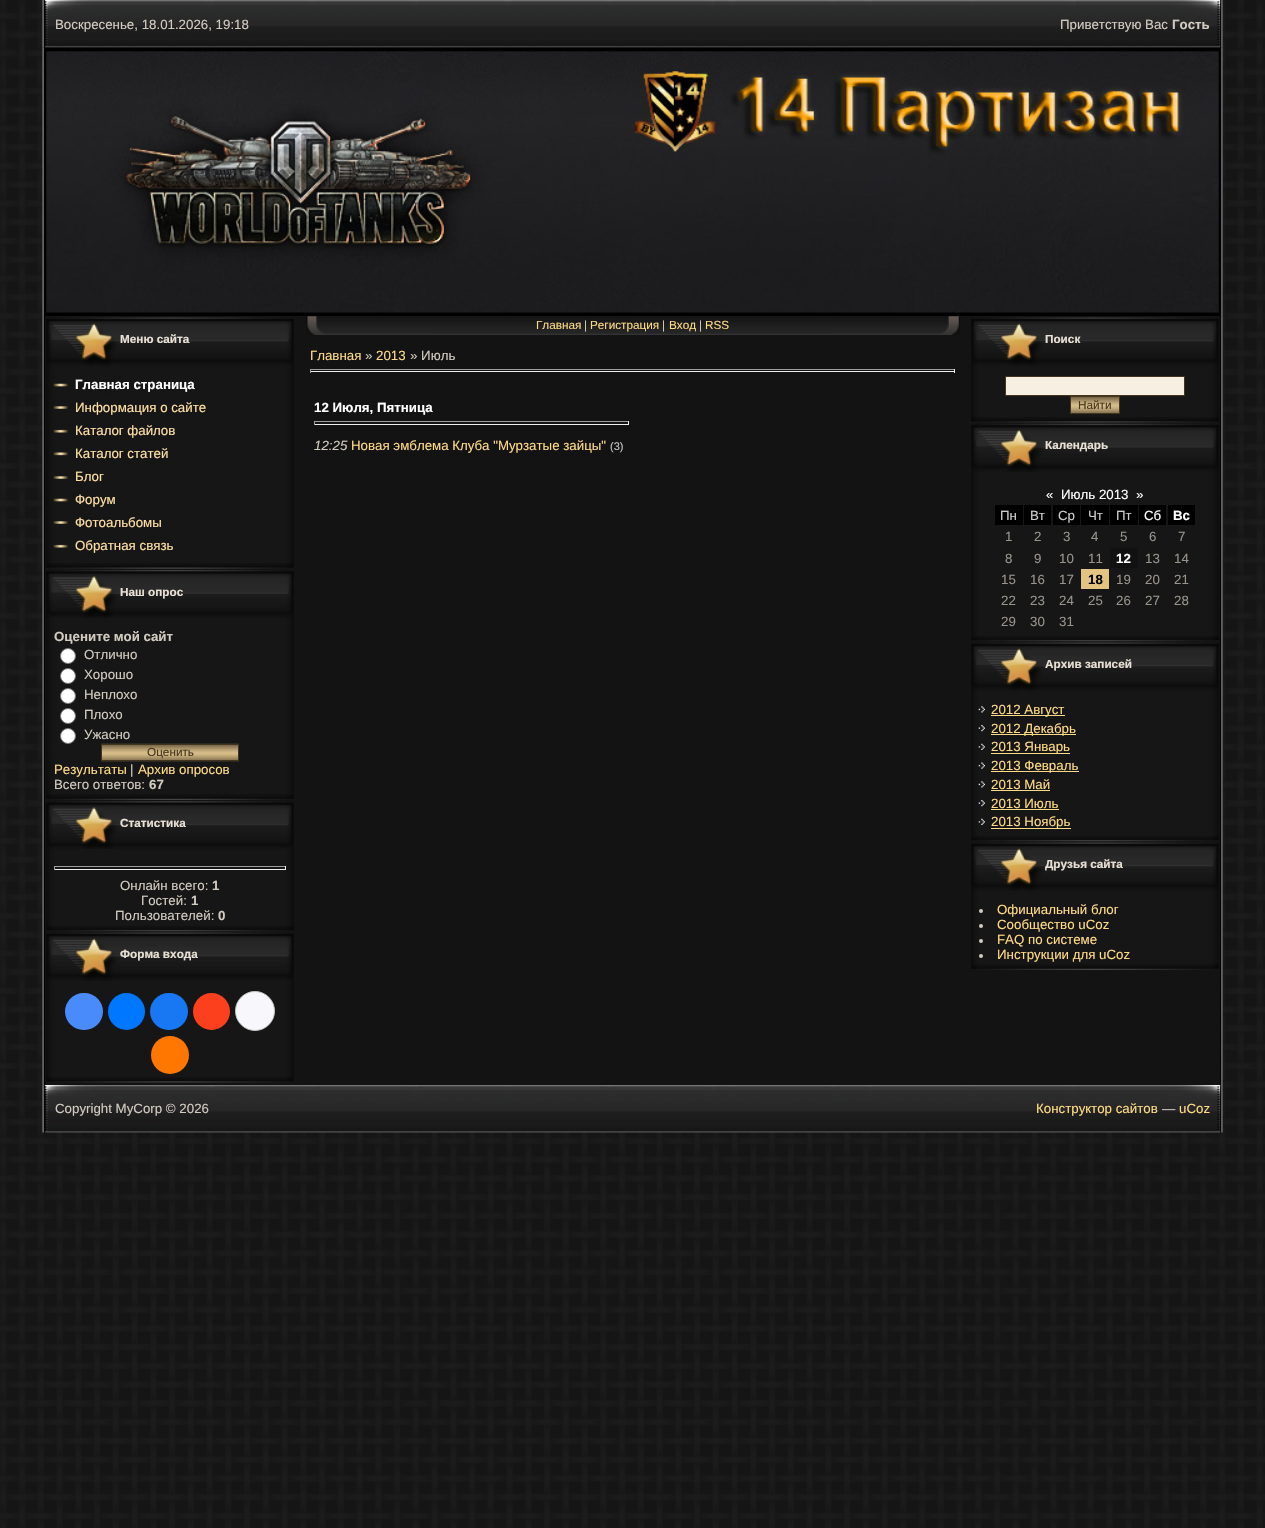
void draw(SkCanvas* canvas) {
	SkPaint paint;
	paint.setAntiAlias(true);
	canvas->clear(0xffffffff);
	canvas->drawImageRect(SkImages::DeferredFromEncodedData(SkData::MakeFromFileName("img1.png")), SkRect::MakeXYWH(0, 0, 1265, 1528), SkSamplingOptions());
	canvas->drawImageRect(SkImages::DeferredFromEncodedData(SkData::MakeFromFileName("img2.png")), SkRect::MakeXYWH(42, 0, 1181, 48), SkSamplingOptions());
	SkFont f1(fontMgr->matchFamilyStyle("Liberation Sans", SkFontStyle::Normal()), 13.3);
	f1.setSubpixel(true);
	paint.setColor(0xffd2cbc0);
	canvas->drawString("Воскресенье, 18.01.2026, 19:18", 55, 29, f1, paint);
	canvas->drawString("Приветствую Вас", 1060, 29, f1, paint);
	SkFont f2(fontMgr->matchFamilyStyle("Liberation Sans", SkFontStyle::Bold()), 13.3);
	f2.setSubpixel(true);
	canvas->drawString("Гость", 1172, 29, f2, paint);
	canvas->drawImageRect(SkImages::DeferredFromEncodedData(SkData::MakeFromFileName("img3.png")), SkRect::MakeXYWH(42, 47, 1181, 270), SkSamplingOptions());
	canvas->drawImageRect(SkImages::DeferredFromEncodedData(SkData::MakeFromFileName("img4.png")), SkRect::MakeXYWH(42, 316, 1181, 769), SkSamplingOptions());
	canvas->drawImageRect(SkImages::DeferredFromEncodedData(SkData::MakeFromFileName("img5.png")), SkRect::MakeXYWH(46, 366, 248, 203), SkSamplingOptions());
	canvas->drawImageRect(SkImages::DeferredFromEncodedData(SkData::MakeFromFileName("img6.png")), SkRect::MakeXYWH(46, 317, 248, 49), SkSamplingOptions());
	SkFont f3(fontMgr->matchFamilyStyle("Liberation Sans", SkFontStyle::Bold()), 11.75);
	f3.setSubpixel(true);
	paint.setColor(0xffe9e1d5);
	canvas->drawString("Меню сайта", 120, 343, f3, paint);
	canvas->drawImageRect(SkImages::DeferredFromEncodedData(SkData::MakeFromFileName("img7.png")), SkRect::MakeXYWH(47, 563, 247, 6), SkSamplingOptions());
	canvas->drawImageRect(SkImages::DeferredFromEncodedData(SkData::MakeFromFileName("img8.png")), SkRect::MakeXYWH(53, 383, 15, 4), SkSamplingOptions());
	paint.setColor(0xffffffff);
	canvas->drawString("Главная страница", 75, 389, f2, paint);
	canvas->drawImageRect(SkImages::DeferredFromEncodedData(SkData::MakeFromFileName("img9.png")), SkRect::MakeXYWH(53, 406, 15, 3), SkSamplingOptions());
	paint.setColor(0xffffe0a2);
	canvas->drawString("Информация о сайте", 75, 412, f1, paint);
	canvas->drawImageRect(SkImages::DeferredFromEncodedData(SkData::MakeFromFileName("img10.png")), SkRect::MakeXYWH(53, 429, 15, 4), SkSamplingOptions());
	canvas->drawString("Каталог файлов", 75, 435, f1, paint);
	canvas->drawImageRect(SkImages::DeferredFromEncodedData(SkData::MakeFromFileName("img11.png")), SkRect::MakeXYWH(53, 452, 15, 4), SkSamplingOptions());
	canvas->drawString("Каталог статей", 75, 458, f1, paint);
	canvas->drawImageRect(SkImages::DeferredFromEncodedData(SkData::MakeFromFileName("img9.png")), SkRect::MakeXYWH(53, 476, 15, 3), SkSamplingOptions());
	canvas->drawString("Блог", 75, 481, f1, paint);
	canvas->drawImageRect(SkImages::DeferredFromEncodedData(SkData::MakeFromFileName("img8.png")), SkRect::MakeXYWH(53, 498, 15, 4), SkSamplingOptions());
	canvas->drawString("Форум", 75, 504, f1, paint);
	canvas->drawImageRect(SkImages::DeferredFromEncodedData(SkData::MakeFromFileName("img9.png")), SkRect::MakeXYWH(53, 521, 15, 3), SkSamplingOptions());
	canvas->drawString("Фотоальбомы", 75, 527, f1, paint);
	canvas->drawImageRect(SkImages::DeferredFromEncodedData(SkData::MakeFromFileName("img10.png")), SkRect::MakeXYWH(53, 544, 15, 4), SkSamplingOptions());
	canvas->drawString("Обратная связь", 75, 550, f1, paint);
	canvas->drawImageRect(SkImages::DeferredFromEncodedData(SkData::MakeFromFileName("img12.png")), SkRect::MakeXYWH(46, 618, 248, 176), SkSamplingOptions());
	canvas->drawImageRect(SkImages::DeferredFromEncodedData(SkData::MakeFromFileName("img13.png")), SkRect::MakeXYWH(46, 570, 248, 48), SkSamplingOptions());
	paint.setColor(0xffe9e1d5);
	canvas->drawString("Наш опрос", 120, 596, f3, paint);
	canvas->drawImageRect(SkImages::DeferredFromEncodedData(SkData::MakeFromFileName("img14.png")), SkRect::MakeXYWH(46, 794, 248, 6), SkSamplingOptions());
	paint.setColor(0xffd2cbc0);
	canvas->drawString("Оцените мой сайт", 54, 641, f2, paint);
	paint.setColor(0xffffffff);
	canvas->drawCircle(68, 656, 7.5, paint);
	paint.setStroke(true);
	paint.setStrokeWidth(1);
	paint.setColor(0xff767676);
	canvas->drawCircle(68, 656, 7.5, paint);
	paint.setStroke(false);
	paint.setColor(0xffd2cbc0);
	canvas->drawString("Отлично", 84, 659, f1, paint);
	paint.setColor(0xffffffff);
	canvas->drawCircle(68, 676, 7.5, paint);
	paint.setStroke(true);
	paint.setColor(0xff767676);
	canvas->drawCircle(68, 676, 7.5, paint);
	paint.setStroke(false);
	paint.setColor(0xffd2cbc0);
	canvas->drawString("Хорошо", 84, 679, f1, paint);
	paint.setColor(0xffffffff);
	canvas->drawCircle(68, 696, 7.5, paint);
	paint.setStroke(true);
	paint.setColor(0xff767676);
	canvas->drawCircle(68, 696, 7.5, paint);
	paint.setStroke(false);
	paint.setColor(0xffd2cbc0);
	canvas->drawString("Неплохо", 84, 699, f1, paint);
	paint.setColor(0xffffffff);
	canvas->drawCircle(68, 716, 7.5, paint);
	paint.setStroke(true);
	paint.setColor(0xff767676);
	canvas->drawCircle(68, 716, 7.5, paint);
	paint.setStroke(false);
	paint.setColor(0xffd2cbc0);
	canvas->drawString("Плохо", 84, 719, f1, paint);
	paint.setColor(0xffffffff);
	canvas->drawCircle(68, 736, 7.5, paint);
	paint.setStroke(true);
	paint.setColor(0xff767676);
	canvas->drawCircle(68, 736, 7.5, paint);
	paint.setStroke(false);
	paint.setColor(0xffd2cbc0);
	canvas->drawString("Ужасно", 84, 739, f1, paint);
	canvas->drawImageRect(SkImages::DeferredFromEncodedData(SkData::MakeFromFileName("img15.png")), SkRect::MakeXYWH(101, 743, 138, 19), SkSamplingOptions());
	paint.setStroke(true);
	paint.setColor(0xff44361e);
	canvas->drawRect(SkRect::MakeXYWH(101.5, 744.5, 137, 16), paint);
	SkFont f4(fontMgr->matchFamilyStyle("Liberation Sans", SkFontStyle::Normal()), 11.75);
	f4.setSubpixel(true);
	paint.setStroke(false);
	canvas->drawString("Оценить", 147, 756, f4, paint);
	paint.setColor(0xffffdb83);
	canvas->drawString("Результаты", 54, 774, f1, paint);
	paint.setColor(0xffd2cbc0);
	canvas->drawString("|", 130, 774, f1, paint);
	paint.setColor(0xffffdb83);
	canvas->drawString("Архив опросов", 138, 774, f1, paint);
	paint.setColor(0xffd2cbc0);
	canvas->drawString("Всего ответов:", 54, 789, f1, paint);
	canvas->drawString("67", 149, 789, f2, paint);
	canvas->drawImageRect(SkImages::DeferredFromEncodedData(SkData::MakeFromFileName("img16.png")), SkRect::MakeXYWH(46, 801, 248, 130), SkSamplingOptions());
	canvas->drawImageRect(SkImages::DeferredFromEncodedData(SkData::MakeFromFileName("img17.png")), SkRect::MakeXYWH(46, 801, 248, 48), SkSamplingOptions());
	paint.setColor(0xffe9e1d5);
	canvas->drawString("Статистика", 120, 827, f3, paint);
	canvas->drawImageRect(SkImages::DeferredFromEncodedData(SkData::MakeFromFileName("img18.png")), SkRect::MakeXYWH(47, 926, 247, 6), SkSamplingOptions());
	paint.setColor(0xff9f9f9f);
	canvas->drawRect(SkRect::MakeXYWH(54, 866, 232, 1), paint);
	paint.setColor(0xffeeeeee);
	canvas->drawRect(SkRect::MakeXYWH(285, 866, 1, 4), paint);
	canvas->drawRect(SkRect::MakeXYWH(54, 869, 232, 1), paint);
	paint.setColor(0xff9f9f9f);
	canvas->drawRect(SkRect::MakeXYWH(54, 866, 1, 4), paint);
	paint.setColor(0xffd2cbc0);
	canvas->drawString("Онлайн всего:", 120, 890, f1, paint);
	canvas->drawString("1", 212, 890, f2, paint);
	canvas->drawString("Гостей:", 141, 905, f1, paint);
	canvas->drawString("1", 191, 905, f2, paint);
	canvas->drawString("Пользователей:", 115, 920, f1, paint);
	canvas->drawString("0", 218, 920, f2, paint);
	canvas->drawImageRect(SkImages::DeferredFromEncodedData(SkData::MakeFromFileName("img19.png")), SkRect::MakeXYWH(46, 981, 248, 96), SkSamplingOptions());
	canvas->drawImageRect(SkImages::DeferredFromEncodedData(SkData::MakeFromFileName("img6.png")), SkRect::MakeXYWH(46, 932, 248, 49), SkSamplingOptions());
	paint.setColor(0xffe9e1d5);
	canvas->drawString("Форма входа", 120, 958, f3, paint);
	canvas->drawImageRect(SkImages::DeferredFromEncodedData(SkData::MakeFromFileName("img20.png")), SkRect::MakeXYWH(46, 1077, 248, 6), SkSamplingOptions());
	paint.setColor(0xff498bfa);
	canvas->drawRoundRect(SkRect::MakeXYWH(65, 993, 38, 37), 18.5, 18.5, paint);
	paint.setColor(0xff0077ff);
	canvas->drawCircle(126.5, 1011.5, 18.5, paint);
	paint.setColor(0xff1877f2);
	canvas->drawRoundRect(SkRect::MakeXYWH(150, 993, 38, 37), 18.5, 18.5, paint);
	paint.setColor(0xfffc3f1d);
	canvas->drawCircle(211.5, 1011.5, 18.5, paint);
	paint.setColor(0xfff8f8fc);
	canvas->drawCircle(255, 1011, 19.5, paint);
	paint.setStroke(true);
	paint.setColor(0xffc4c4c4);
	canvas->drawCircle(255, 1011, 19.5, paint);
	paint.setStroke(false);
	paint.setColor(0xffff7700);
	canvas->drawCircle(170, 1055, 19, paint);
	canvas->drawImageRect(SkImages::DeferredFromEncodedData(SkData::MakeFromFileName("img21.png")), SkRect::MakeXYWH(306, 316, 654, 19), SkSamplingOptions());
	paint.setColor(0xffffdb83);
	canvas->drawString("Главная", 536, 329, f4, paint);
	paint.setColor(0xffd2cbc0);
	canvas->drawString("|", 584, 329, f4, paint);
	paint.setColor(0xffffdb83);
	canvas->drawString("Регистрация", 590, 329, f4, paint);
	paint.setColor(0xffd2cbc0);
	canvas->drawString("|", 662, 329, f4, paint);
	paint.setColor(0xffffdb83);
	canvas->drawString("Вход", 669, 329, f4, paint);
	paint.setColor(0xffd2cbc0);
	canvas->drawString("|", 699, 329, f4, paint);
	paint.setColor(0xffffdb83);
	canvas->drawString("RSS", 705, 329, f4, paint);
	canvas->drawString("Главная", 310, 360, f1, paint);
	paint.setColor(0xffd2cbc0);
	canvas->drawString("»", 365, 360, f1, paint);
	paint.setColor(0xffffdb83);
	canvas->drawString("2013", 376, 360, f1, paint);
	paint.setColor(0xffd2cbc0);
	canvas->drawString("» Июль", 410, 360, f1, paint);
	paint.setColor(0xff9f9f9f);
	canvas->drawRect(SkRect::MakeXYWH(310, 369, 645, 1), paint);
	paint.setColor(0xffeeeeee);
	canvas->drawRect(SkRect::MakeXYWH(954, 369, 1, 4), paint);
	canvas->drawRect(SkRect::MakeXYWH(310, 371, 645, 1), paint);
	paint.setColor(0xff9f9f9f);
	canvas->drawRect(SkRect::MakeXYWH(310, 369, 1, 4), paint);
	paint.setColor(0xffffffff);
	canvas->drawString("12 Июля, Пятница", 314, 412, f2, paint);
	paint.setColor(0xff9f9f9f);
	canvas->drawRect(SkRect::MakeXYWH(314, 421, 315, 1), paint);
	paint.setColor(0xffeeeeee);
	canvas->drawRect(SkRect::MakeXYWH(628, 421, 1, 4), paint);
	canvas->drawRect(SkRect::MakeXYWH(314, 424, 315, 1), paint);
	paint.setColor(0xff9f9f9f);
	canvas->drawRect(SkRect::MakeXYWH(314, 421, 1, 4), paint);
	SkFont f5(fontMgr->matchFamilyStyle("Liberation Sans", SkFontStyle::Italic()), 13.3);
	f5.setSubpixel(true);
	paint.setColor(0xffd2cbc0);
	canvas->drawString("12:25", 314, 450, f5, paint);
	paint.setColor(0xffffdb83);
	canvas->drawString("Новая эмблема Клуба \"Мурзатые зайцы\"", 351, 450, f1, paint);
	SkFont f6(fontMgr->matchFamilyStyle("Liberation Sans", SkFontStyle::Normal()), 11);
	f6.setSubpixel(true);
	paint.setColor(0xffc3c3c3);
	canvas->drawString("(3)", 610, 450, f6, paint);
	canvas->drawImageRect(SkImages::DeferredFromEncodedData(SkData::MakeFromFileName("img22.png")), SkRect::MakeXYWH(971, 366, 248, 51), SkSamplingOptions());
	canvas->drawImageRect(SkImages::DeferredFromEncodedData(SkData::MakeFromFileName("img23.png")), SkRect::MakeXYWH(971, 317, 248, 49), SkSamplingOptions());
	paint.setColor(0xffe9e1d5);
	canvas->drawString("Поиск", 1045, 343, f3, paint);
	canvas->drawImageRect(SkImages::DeferredFromEncodedData(SkData::MakeFromFileName("img24.png")), SkRect::MakeXYWH(971, 417, 248, 6), SkSamplingOptions());
	paint.setColor(0xfff8efe3);
	canvas->drawRect(SkRect::MakeXYWH(1005.5, 376.5, 179, 19), paint);
	paint.setStroke(true);
	paint.setColor(0xff44361e);
	canvas->drawRect(SkRect::MakeXYWH(1005.5, 376.5, 179, 19), paint);
	canvas->drawImageRect(SkImages::DeferredFromEncodedData(SkData::MakeFromFileName("img25.png")), SkRect::MakeXYWH(1071, 397, 48, 16), SkSamplingOptions());
	canvas->drawRect(SkRect::MakeXYWH(1070.5, 396.5, 49, 17), paint);
	paint.setStroke(false);
	canvas->drawString("Найти", 1078, 409, f4, paint);
	canvas->drawImageRect(SkImages::DeferredFromEncodedData(SkData::MakeFromFileName("img26.png")), SkRect::MakeXYWH(971, 472, 248, 169), SkSamplingOptions());
	canvas->drawImageRect(SkImages::DeferredFromEncodedData(SkData::MakeFromFileName("img27.png")), SkRect::MakeXYWH(971, 423, 248, 49), SkSamplingOptions());
	paint.setColor(0xffe9e1d5);
	canvas->drawString("Календарь", 1045, 449, f3, paint);
	canvas->drawImageRect(SkImages::DeferredFromEncodedData(SkData::MakeFromFileName("img28.png")), SkRect::MakeXYWH(972, 636, 247, 6), SkSamplingOptions());
	paint.setColor(0xffffffff);
	canvas->drawString("«", 1046, 499, f1, paint);
	canvas->drawString("Июль 2013", 1061, 499, f1, paint);
	canvas->drawString("»", 1136, 499, f1, paint);
	paint.setColor(0xff000000);
	canvas->drawRect(SkRect::MakeXYWH(995, 505, 28, 20), paint);
	paint.setColor(0xffcccccc);
	canvas->drawString("Пн", 1000, 520, f1, paint);
	paint.setColor(0xff000000);
	canvas->drawRect(SkRect::MakeXYWH(1024, 505, 27, 20), paint);
	paint.setColor(0xffcccccc);
	canvas->drawString("Вт", 1030, 520, f1, paint);
	paint.setColor(0xff000000);
	canvas->drawRect(SkRect::MakeXYWH(1053, 505, 27, 20), paint);
	paint.setColor(0xffcccccc);
	canvas->drawString("Ср", 1058, 520, f1, paint);
	paint.setColor(0xff000000);
	canvas->drawRect(SkRect::MakeXYWH(1081, 505, 28, 20), paint);
	paint.setColor(0xffcccccc);
	canvas->drawString("Чт", 1088, 520, f1, paint);
	paint.setColor(0xff000000);
	canvas->drawRect(SkRect::MakeXYWH(1110, 505, 28, 20), paint);
	paint.setColor(0xffcccccc);
	canvas->drawString("Пт", 1116, 520, f1, paint);
	paint.setColor(0xff000000);
	canvas->drawRect(SkRect::MakeXYWH(1139, 505, 27, 20), paint);
	paint.setColor(0xffffffff);
	canvas->drawString("Сб", 1144, 520, f1, paint);
	paint.setColor(0xff000000);
	canvas->drawRect(SkRect::MakeXYWH(1168, 505, 27, 20), paint);
	paint.setColor(0xffffffff);
	canvas->drawString("Вс", 1173, 520, f2, paint);
	paint.setColor(0xff98938b);
	canvas->drawString("1", 1005, 541, f1, paint);
	canvas->drawString("2", 1034, 541, f1, paint);
	canvas->drawString("3", 1063, 541, f1, paint);
	canvas->drawString("4", 1091, 541, f1, paint);
	canvas->drawString("5", 1120, 541, f1, paint);
	canvas->drawString("6", 1149, 541, f1, paint);
	canvas->drawString("7", 1178, 541, f1, paint);
	canvas->drawString("8", 1005, 563, f1, paint);
	canvas->drawString("9", 1034, 563, f1, paint);
	canvas->drawString("10", 1059, 563, f1, paint);
	canvas->drawString("11", 1088, 563, f1, paint);
	paint.setColor(0xff111111);
	canvas->drawRect(SkRect::MakeXYWH(1110, 548, 28, 20), paint);
	paint.setColor(0xffffffff);
	canvas->drawString("12", 1116, 563, f2, paint);
	paint.setColor(0xff98938b);
	canvas->drawString("13", 1145, 563, f1, paint);
	canvas->drawString("14", 1174, 563, f1, paint);
	canvas->drawString("15", 1001, 584, f1, paint);
	canvas->drawString("16", 1030, 584, f1, paint);
	canvas->drawString("17", 1059, 584, f1, paint);
	paint.setColor(0xffe3c481);
	canvas->drawRect(SkRect::MakeXYWH(1081, 569, 28, 20), paint);
	paint.setColor(0xff000000);
	canvas->drawString("18", 1088, 584, f2, paint);
	paint.setColor(0xff98938b);
	canvas->drawString("19", 1116, 584, f1, paint);
	canvas->drawString("20", 1145, 584, f1, paint);
	canvas->drawString("21", 1174, 584, f1, paint);
	canvas->drawString("22", 1001, 605, f1, paint);
	canvas->drawString("23", 1030, 605, f1, paint);
	canvas->drawString("24", 1059, 605, f1, paint);
	canvas->drawString("25", 1088, 605, f1, paint);
	canvas->drawString("26", 1116, 605, f1, paint);
	canvas->drawString("27", 1145, 605, f1, paint);
	canvas->drawString("28", 1174, 605, f1, paint);
	canvas->drawString("29", 1001, 626, f1, paint);
	canvas->drawString("30", 1030, 626, f1, paint);
	canvas->drawString("31", 1059, 626, f1, paint);
	canvas->drawImageRect(SkImages::DeferredFromEncodedData(SkData::MakeFromFileName("img29.png")), SkRect::MakeXYWH(971, 691, 248, 150), SkSamplingOptions());
	canvas->drawImageRect(SkImages::DeferredFromEncodedData(SkData::MakeFromFileName("img23.png")), SkRect::MakeXYWH(971, 642, 248, 49), SkSamplingOptions());
	paint.setColor(0xffe9e1d5);
	canvas->drawString("Архив записей", 1045, 668, f3, paint);
	canvas->drawImageRect(SkImages::DeferredFromEncodedData(SkData::MakeFromFileName("img28.png")), SkRect::MakeXYWH(972, 836, 247, 6), SkSamplingOptions());
	canvas->drawImageRect(SkImages::DeferredFromEncodedData(SkData::MakeFromFileName("img30.png")), SkRect::MakeXYWH(978, 706, 7, 7), SkSamplingOptions());
	paint.setColor(0xffffdb83);
	canvas->drawRect(SkRect::MakeXYWH(991, 715, 74, 1), paint);
	canvas->drawString("2012 Август", 991, 714, f1, paint);
	canvas->drawImageRect(SkImages::DeferredFromEncodedData(SkData::MakeFromFileName("img31.png")), SkRect::MakeXYWH(978, 725, 7, 7), SkSamplingOptions());
	canvas->drawRect(SkRect::MakeXYWH(991, 734, 85, 1), paint);
	canvas->drawString("2012 Декабрь", 991, 733, f1, paint);
	canvas->drawImageRect(SkImages::DeferredFromEncodedData(SkData::MakeFromFileName("img32.png")), SkRect::MakeXYWH(978, 743, 7, 7), SkSamplingOptions());
	canvas->drawRect(SkRect::MakeXYWH(991, 753, 79, 1), paint);
	canvas->drawString("2013 Январь", 991, 751, f1, paint);
	canvas->drawImageRect(SkImages::DeferredFromEncodedData(SkData::MakeFromFileName("img33.png")), SkRect::MakeXYWH(978, 762, 7, 7), SkSamplingOptions());
	canvas->drawRect(SkRect::MakeXYWH(991, 771, 88, 1), paint);
	canvas->drawString("2013 Февраль", 991, 770, f1, paint);
	canvas->drawImageRect(SkImages::DeferredFromEncodedData(SkData::MakeFromFileName("img34.png")), SkRect::MakeXYWH(978, 781, 7, 7), SkSamplingOptions());
	canvas->drawString("2013 Май", 991, 789, f1, paint);
	canvas->drawRect(SkRect::MakeXYWH(991, 790, 59, 1), paint);
	canvas->drawImageRect(SkImages::DeferredFromEncodedData(SkData::MakeFromFileName("img31.png")), SkRect::MakeXYWH(978, 800, 7, 7), SkSamplingOptions());
	canvas->drawString("2013 Июль", 991, 808, f1, paint);
	canvas->drawRect(SkRect::MakeXYWH(991, 809, 68, 1), paint);
	canvas->drawImageRect(SkImages::DeferredFromEncodedData(SkData::MakeFromFileName("img32.png")), SkRect::MakeXYWH(978, 818, 7, 7), SkSamplingOptions());
	canvas->drawRect(SkRect::MakeXYWH(991, 828, 80, 1), paint);
	canvas->drawString("2013 Ноябрь", 991, 826, f1, paint);
	canvas->drawImageRect(SkImages::DeferredFromEncodedData(SkData::MakeFromFileName("img35.png")), SkRect::MakeXYWH(971, 891, 248, 73), SkSamplingOptions());
	canvas->drawImageRect(SkImages::DeferredFromEncodedData(SkData::MakeFromFileName("img23.png")), SkRect::MakeXYWH(971, 842, 248, 49), SkSamplingOptions());
	paint.setColor(0xffe9e1d5);
	canvas->drawString("Друзья сайта", 1045, 868, f3, paint);
	canvas->drawImageRect(SkImages::DeferredFromEncodedData(SkData::MakeFromFileName("img36.png")), SkRect::MakeXYWH(971, 964, 248, 6), SkSamplingOptions());
	paint.setColor(0xffd2cbc0);
	canvas->drawCircle(981, 911, 2, paint);
	paint.setColor(0xffffdb83);
	canvas->drawString("Официальный блог", 997, 914, f1, paint);
	paint.setColor(0xffd2cbc0);
	canvas->drawCircle(981, 926, 2, paint);
	paint.setColor(0xffffdb83);
	canvas->drawString("Сообщество uCoz", 997, 929, f1, paint);
	paint.setColor(0xffd2cbc0);
	canvas->drawCircle(981, 941, 2, paint);
	paint.setColor(0xffffdb83);
	canvas->drawString("FAQ по системе", 997, 944, f1, paint);
	paint.setColor(0xffd2cbc0);
	canvas->drawCircle(981, 956, 2, paint);
	paint.setColor(0xffffdb83);
	canvas->drawString("Инструкции для uCoz", 997, 959, f1, paint);
	canvas->drawImageRect(SkImages::DeferredFromEncodedData(SkData::MakeFromFileName("img37.png")), SkRect::MakeXYWH(42, 1085, 1181, 48), SkSamplingOptions());
	paint.setColor(0xffd2cbc0);
	canvas->drawString("Copyright MyCorp © 2026", 55, 1113, f1, paint);
	paint.setColor(0xffffdb83);
	canvas->drawString("Конструктор сайтов", 1036, 1113, f1, paint);
	paint.setColor(0xffd2cbc0);
	canvas->drawString("—", 1162, 1113, f1, paint);
	paint.setColor(0xffffdb83);
	canvas->drawString("uCoz", 1179, 1113, f1, paint);
}
